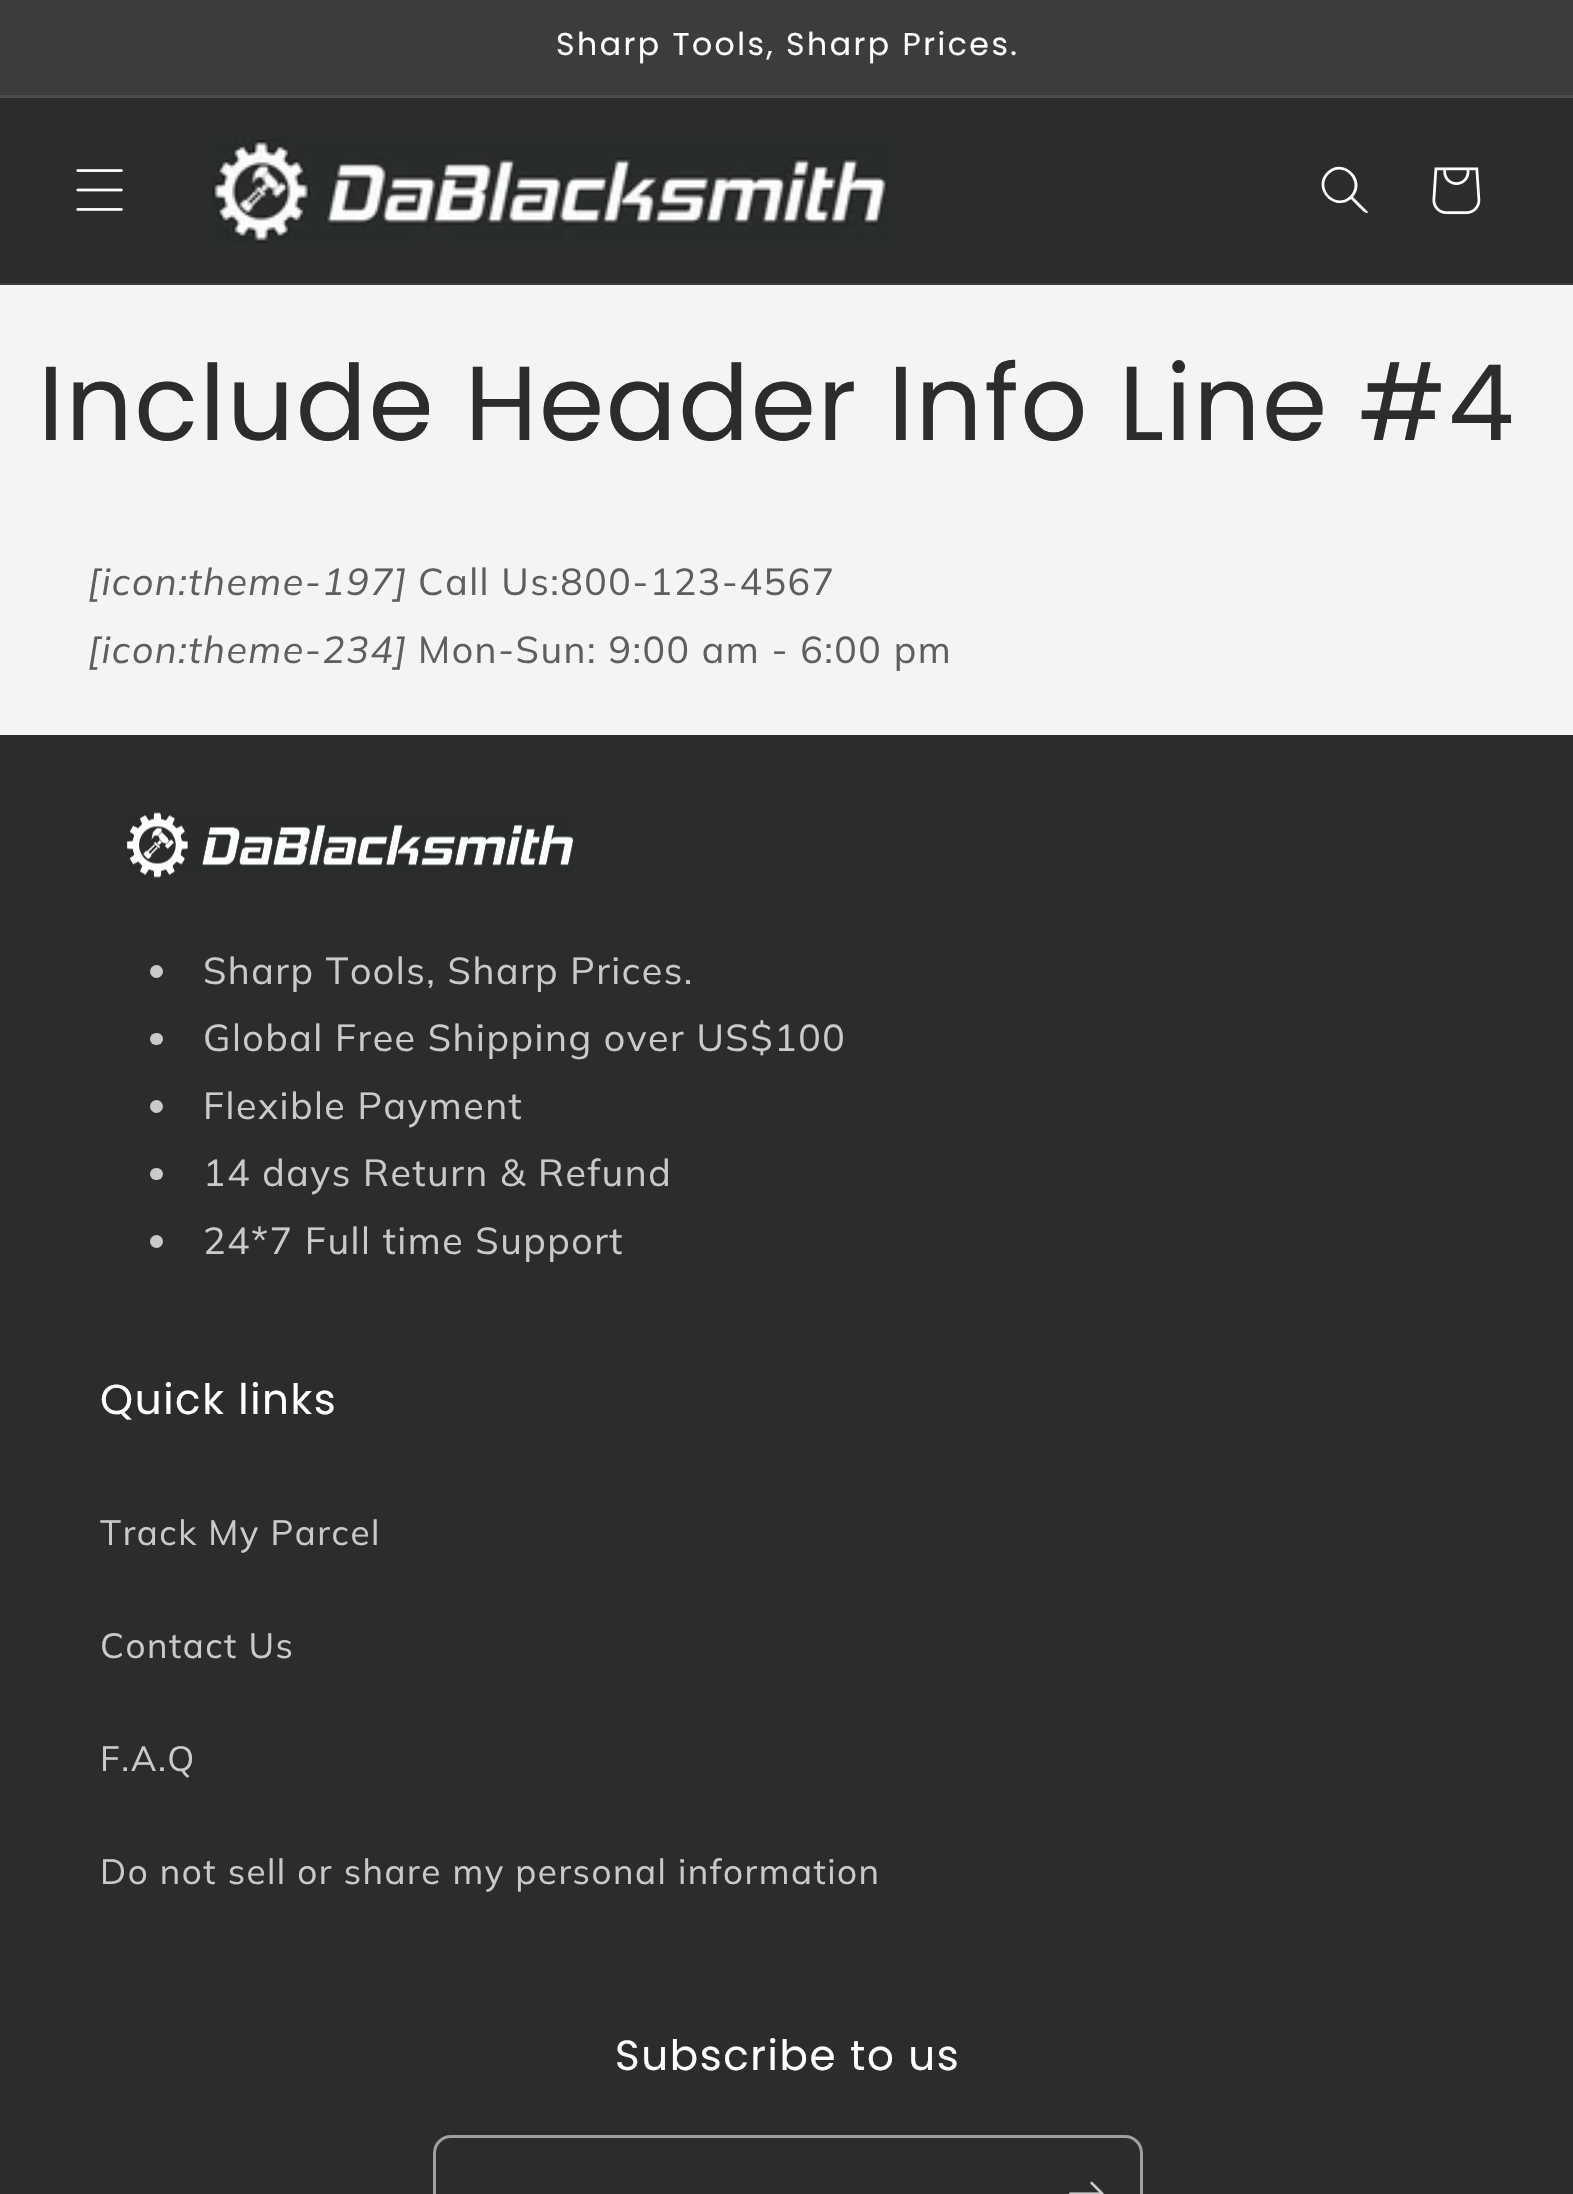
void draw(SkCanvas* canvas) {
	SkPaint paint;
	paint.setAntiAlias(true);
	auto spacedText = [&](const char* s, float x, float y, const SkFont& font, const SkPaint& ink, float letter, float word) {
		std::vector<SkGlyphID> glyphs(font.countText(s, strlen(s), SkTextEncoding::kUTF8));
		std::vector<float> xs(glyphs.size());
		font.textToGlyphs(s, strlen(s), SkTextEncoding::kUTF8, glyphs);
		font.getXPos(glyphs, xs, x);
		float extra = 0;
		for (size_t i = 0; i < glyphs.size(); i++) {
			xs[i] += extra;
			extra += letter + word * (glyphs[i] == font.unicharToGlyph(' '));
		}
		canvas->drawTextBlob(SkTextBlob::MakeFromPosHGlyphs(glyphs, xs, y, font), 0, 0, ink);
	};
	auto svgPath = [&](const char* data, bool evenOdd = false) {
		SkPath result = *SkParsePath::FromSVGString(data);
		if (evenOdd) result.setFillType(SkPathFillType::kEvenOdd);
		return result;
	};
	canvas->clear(0xfff4f4f4);
	paint.setColor(0xff3b3c3d);
	canvas->drawRect(SkRect::MakeXYWH(0, 0, 1573, 95), paint);
	paint.setColor(0xff4b4c4d);
	canvas->drawRect(SkRect::MakeXYWH(0, 95, 1573, 3), paint);
	SkFont f1(fontMgr->matchFamilyStyle("Poppins", SkFontStyle::Normal()), 31.5);
	f1.setSubpixel(true);
	paint.setColor(0xffffffff);
	spacedText("Sharp Tools, Sharp Prices.", 556, 55, f1, paint, 2.5, 0);
	paint.setColor(0xff2b2c2d);
	canvas->drawRect(SkRect::MakeXYWH(0, 98, 1573, 185), paint);
	paint.setColor(0xff3c3d3e);
	canvas->drawRect(SkRect::MakeXYWH(0, 283, 1573, 2), paint);
	canvas->drawImageRect(SkImages::DeferredFromEncodedData(SkData::MakeFromFileName("img1.png")), SkRect::MakeXYWH(76, 169, 47, 42), SkSamplingOptions());
	canvas->drawImageRect(SkImages::DeferredFromEncodedData(SkData::MakeFromFileName("img2.png")), SkRect::MakeXYWH(212, 138, 676, 106), SkSamplingOptions());
	paint.setColor(0xffffffff);
	canvas->drawPath(svgPath("M1350 196C1336 210 1315 188 1329 174C1343 160 1364 182 1350 196ZM1351 199C1334 213 1311 188 1327 172C1343 156 1368 180 1353 197L1368 212L1367 213C1365 214 1353 201 1351 199Z", true), paint);
	canvas->drawImageRect(SkImages::DeferredFromEncodedData(SkData::MakeFromFileName("img3.png")), SkRect::MakeXYWH(1432, 167, 49, 48), SkSamplingOptions());
	SkFont f2(fontMgr->matchFamilyStyle("Poppins", SkFontStyle::Normal()), 105);
	f2.setSubpixel(true);
	paint.setColor(0xff2b2c2d);
	spacedText("Include Header Info Line #4", 38, 440, f2, paint, 1.6, 0);
	SkFont f3(fontMgr->matchFamilyStyle("Muli", SkFontStyle::Italic()), 37.5);
	f3.setSubpixel(true);
	paint.setColor(0xff5d5e5f);
	spacedText("[icon:theme-197]", 88, 595, f3, paint, 1.5, 0);
	SkFont f4(fontMgr->matchFamilyStyle("Muli", SkFontStyle::Normal()), 37.5);
	f4.setSubpixel(true);
	spacedText("Call Us:800-123-4567", 418, 595, f4, paint, 1.5, 0);
	spacedText("[icon:theme-234]", 88, 663, f3, paint, 1.5, 0);
	spacedText("Mon-Sun: 9:00 am - 6:00 pm", 418, 663, f4, paint, 1.5, 0);
	paint.setColor(0xff2b2c2d);
	canvas->drawRect(SkRect::MakeXYWH(0, 735, 1573, 1459), paint);
	canvas->drawImageRect(SkImages::DeferredFromEncodedData(SkData::MakeFromFileName("img4.png")), SkRect::MakeXYWH(126, 812, 448, 66), SkSamplingOptions());
	paint.setColor(0xffcacacb);
	canvas->drawCircle(156.5, 971.5, 6.5, paint);
	spacedText("Sharp Tools, Sharp Prices.", 203, 984, f4, paint, 1.5, 0);
	canvas->drawRoundRect(SkRect::MakeXYWH(150, 1033, 13, 12), 6, 6, paint);
	spacedText("Global Free Shipping over US$100", 203, 1051, f4, paint, 1.5, 0);
	canvas->drawCircle(156.5, 1106.5, 6.5, paint);
	spacedText("Flexible Payment", 203, 1119, f4, paint, 1.5, 0);
	canvas->drawRoundRect(SkRect::MakeXYWH(150, 1168, 13, 12), 6, 6, paint);
	spacedText("14 days Return & Refund", 203, 1186, f4, paint, 1.5, 0);
	canvas->drawCircle(156.5, 1241.5, 6.5, paint);
	spacedText("24*7 Full time Support", 203, 1254, f4, paint, 1.5, 0);
	SkFont f5(fontMgr->matchFamilyStyle("Poppins", SkFontStyle::Normal()), 42);
	f5.setSubpixel(true);
	paint.setColor(0xffffffff);
	spacedText("Quick links", 100, 1414, f5, paint, 1.6, 0);
	SkFont f6(fontMgr->matchFamilyStyle("Muli", SkFontStyle::Normal()), 35);
	f6.setSubpixel(true);
	paint.setColor(0xffcacacb);
	spacedText("Track My Parcel", 100, 1545, f6, paint, 1.5, 0);
	spacedText("Contact Us", 100, 1658, f6, paint, 1.5, 0);
	spacedText("F.A.Q", 100, 1771, f6, paint, 1.5, 0);
	spacedText("Do not sell or share my personal information", 100, 1884, f6, paint, 1.5, 0);
	paint.setColor(0xffffffff);
	spacedText("Subscribe to us", 615, 2070, f5, paint, 1.6, 0);
	paint.setStroke(true);
	paint.setStrokeWidth(3);
	paint.setColor(0xffa0a0a1);
	canvas->drawRoundRect(SkRect::MakeXYWH(434.5, 2136.5, 707, 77), 16.5, 16.5, paint);
	canvas->drawImageRect(SkImages::DeferredFromEncodedData(SkData::MakeFromFileName("img5.png")), SkRect::MakeXYWH(1068, 2181, 36, 13), SkSamplingOptions());
}
